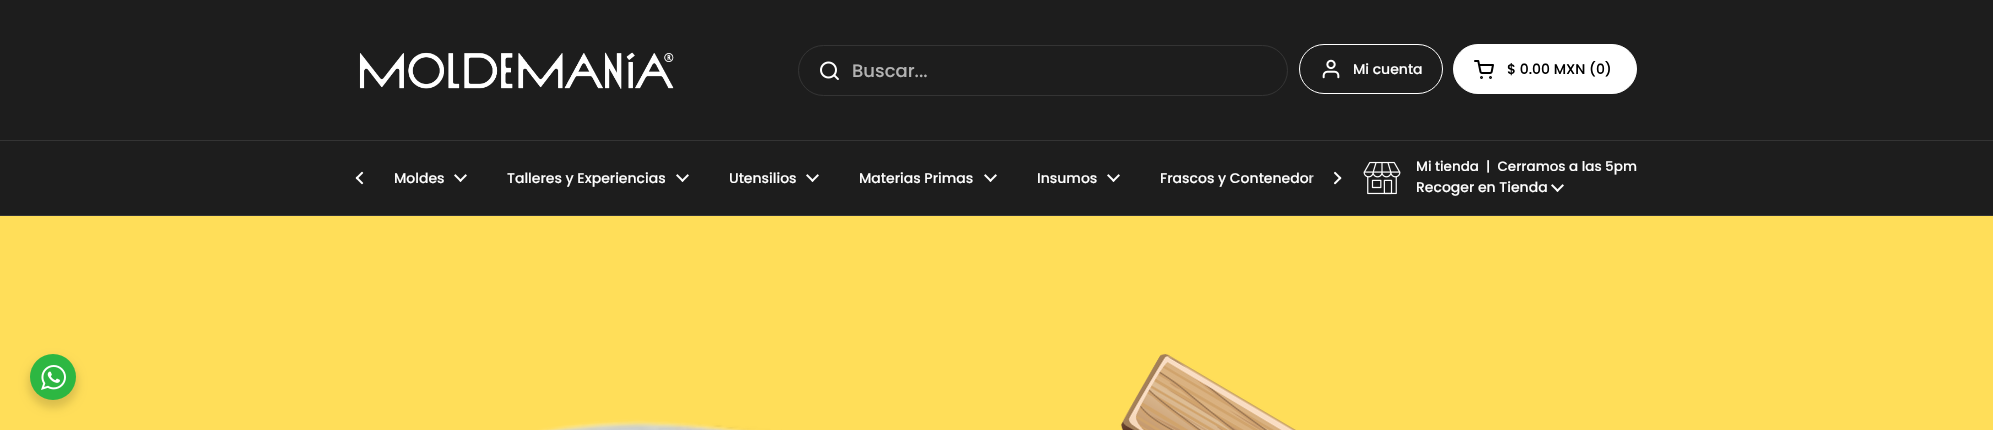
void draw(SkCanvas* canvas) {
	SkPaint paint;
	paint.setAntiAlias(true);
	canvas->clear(0xffffffff);
	paint.setColor(0xff1d1d1d);
	canvas->drawRect(SkRect::MakeXYWH(0, 0, 1993, 215), paint);
	paint.setColor(0xff343434);
	canvas->drawRect(SkRect::MakeXYWH(0, 140, 1993, 1), paint);
	canvas->drawImageRect(SkImages::DeferredFromEncodedData(SkData::MakeFromFileName("img1.png")), SkRect::MakeXYWH(359, 52, 315, 37), SkSamplingOptions());
	paint.setStroke(true);
	paint.setStrokeWidth(1);
	canvas->drawRoundRect(SkRect::MakeXYWH(798.5, 45.5, 489, 50), 25, 25, paint);
	canvas->drawImageRect(SkImages::DeferredFromEncodedData(SkData::MakeFromFileName("img2.png")), SkRect::MakeXYWH(820, 61, 19, 19), SkSamplingOptions());
	SkFont f1(fontMgr->matchFamilyStyle("Poppins", SkFontStyle(500, SkFontStyle::kNormal_Width, SkFontStyle::kUpright_Slant)), 18);
	f1.setSubpixel(true);
	paint.setStroke(false);
	paint.setColor(0xffb2b2b2);
	canvas->drawString("Buscar...", 852, 77, f1, paint);
	paint.setStroke(true);
	paint.setColor(0xffffffff);
	canvas->drawRoundRect(SkRect::MakeXYWH(1299.5, 44.5, 143, 49), 24.5, 24.5, paint);
	canvas->drawImageRect(SkImages::DeferredFromEncodedData(SkData::MakeFromFileName("img3.png")), SkRect::MakeXYWH(1322, 59, 18, 20), SkSamplingOptions());
	SkFont f2(fontMgr->matchFamilyStyle("Poppins", SkFontStyle(500, SkFontStyle::kNormal_Width, SkFontStyle::kUpright_Slant)), 14);
	f2.setSubpixel(true);
	paint.setStroke(false);
	canvas->drawString("Mi cuenta", 1353, 74, f2, paint);
	canvas->drawRoundRect(SkRect::MakeXYWH(1453.5, 44.5, 183, 49), 24.5, 24.5, paint);
	paint.setStroke(true);
	canvas->drawRoundRect(SkRect::MakeXYWH(1453.5, 44.5, 183, 49), 24.5, 24.5, paint);
	canvas->drawImageRect(SkImages::DeferredFromEncodedData(SkData::MakeFromFileName("img4.png")), SkRect::MakeXYWH(1474, 60, 20, 19), SkSamplingOptions());
	paint.setStroke(false);
	paint.setColor(0xff000000);
	canvas->drawString("$ 0.00 MXN (0)", 1507, 74, f2, paint);
	paint.setColor(0xff343434);
	canvas->drawRect(SkRect::MakeXYWH(0, 215, 1993, 1), paint);
	canvas->drawImageRect(SkImages::DeferredFromEncodedData(SkData::MakeFromFileName("img5.png")), SkRect::MakeXYWH(355, 171, 9, 14), SkSamplingOptions());
	paint.setColor(0xffffffff);
	canvas->drawString("Moldes", 394, 183, f2, paint);
	canvas->drawImageRect(SkImages::DeferredFromEncodedData(SkData::MakeFromFileName("img6.png")), SkRect::MakeXYWH(454, 174, 13, 8), SkSamplingOptions());
	canvas->drawString("Talleres y Experiencias", 507, 183, f2, paint);
	canvas->drawImageRect(SkImages::DeferredFromEncodedData(SkData::MakeFromFileName("img6.png")), SkRect::MakeXYWH(676, 174, 13, 8), SkSamplingOptions());
	canvas->drawString("Utensilios", 729, 183, f2, paint);
	canvas->drawImageRect(SkImages::DeferredFromEncodedData(SkData::MakeFromFileName("img6.png")), SkRect::MakeXYWH(806, 174, 13, 8), SkSamplingOptions());
	canvas->drawString("Materias Primas", 859, 183, f2, paint);
	canvas->drawImageRect(SkImages::DeferredFromEncodedData(SkData::MakeFromFileName("img6.png")), SkRect::MakeXYWH(984, 174, 13, 8), SkSamplingOptions());
	canvas->drawString("Insumos", 1037, 183, f2, paint);
	canvas->drawImageRect(SkImages::DeferredFromEncodedData(SkData::MakeFromFileName("img6.png")), SkRect::MakeXYWH(1107, 174, 13, 8), SkSamplingOptions());
	canvas->drawString("Frascos y Contenedor", 1160, 183, f2, paint);
	{
		const SkColor colors[] = {0xff1d1d1d, 0x001d1d1d};
		const float stops[] = {0.5, 1};
		const SkPoint ends[] = {{1334, 178}, {1309, 178}};
		paint.setShader(SkGradientShader::MakeLinear(ends, colors, stops, 2, SkTileMode::kClamp));
		paint.setAlpha(255);
	}
	canvas->drawRect(SkRect::MakeXYWH(1309, 175, 5, 8), paint);
	canvas->drawImageRect(SkImages::DeferredFromEncodedData(SkData::MakeFromFileName("img7.png")), SkRect::MakeXYWH(1334, 171, 8, 14), SkSamplingOptions());
	canvas->drawImageRect(SkImages::DeferredFromEncodedData(SkData::MakeFromFileName("img8.png")), SkRect::MakeXYWH(1363, 161, 38, 34), SkSamplingOptions());
	SkFont f3(fontMgr->matchFamilyStyle("Poppins", SkFontStyle(500, SkFontStyle::kNormal_Width, SkFontStyle::kUpright_Slant)), 13.5);
	f3.setSubpixel(true);
	paint.setShader(nullptr);
	paint.setColor(0xffffffff);
	canvas->drawString("Mi tienda  |  Cerramos a las 5pm", 1416, 171, f3, paint);
	canvas->drawString("Recoger en Tienda", 1416, 192, f2, paint);
	canvas->drawImageRect(SkImages::DeferredFromEncodedData(SkData::MakeFromFileName("img6.png")), SkRect::MakeXYWH(1551, 184, 13, 8), SkSamplingOptions());
	canvas->drawImageRect(SkImages::DeferredFromEncodedData(SkData::MakeFromFileName("img9.png")), SkRect::MakeXYWH(0, 216, 1993, 214), SkSamplingOptions());
	paint.setColor(0x24000000);
	paint.setMaskFilter(SkMaskFilter::MakeBlur(kNormal_SkBlurStyle, 4));
	canvas->drawRoundRect(SkRect::MakeXYWH(28, 358, 50, 50), 25, 25, paint);
	paint.setMaskFilter(nullptr);
	paint.setColor(0xff2db742);
	canvas->drawCircle(53, 377, 23, paint);
	canvas->drawImageRect(SkImages::DeferredFromEncodedData(SkData::MakeFromFileName("img10.png")), SkRect::MakeXYWH(41, 365, 25, 25), SkSamplingOptions());
}
